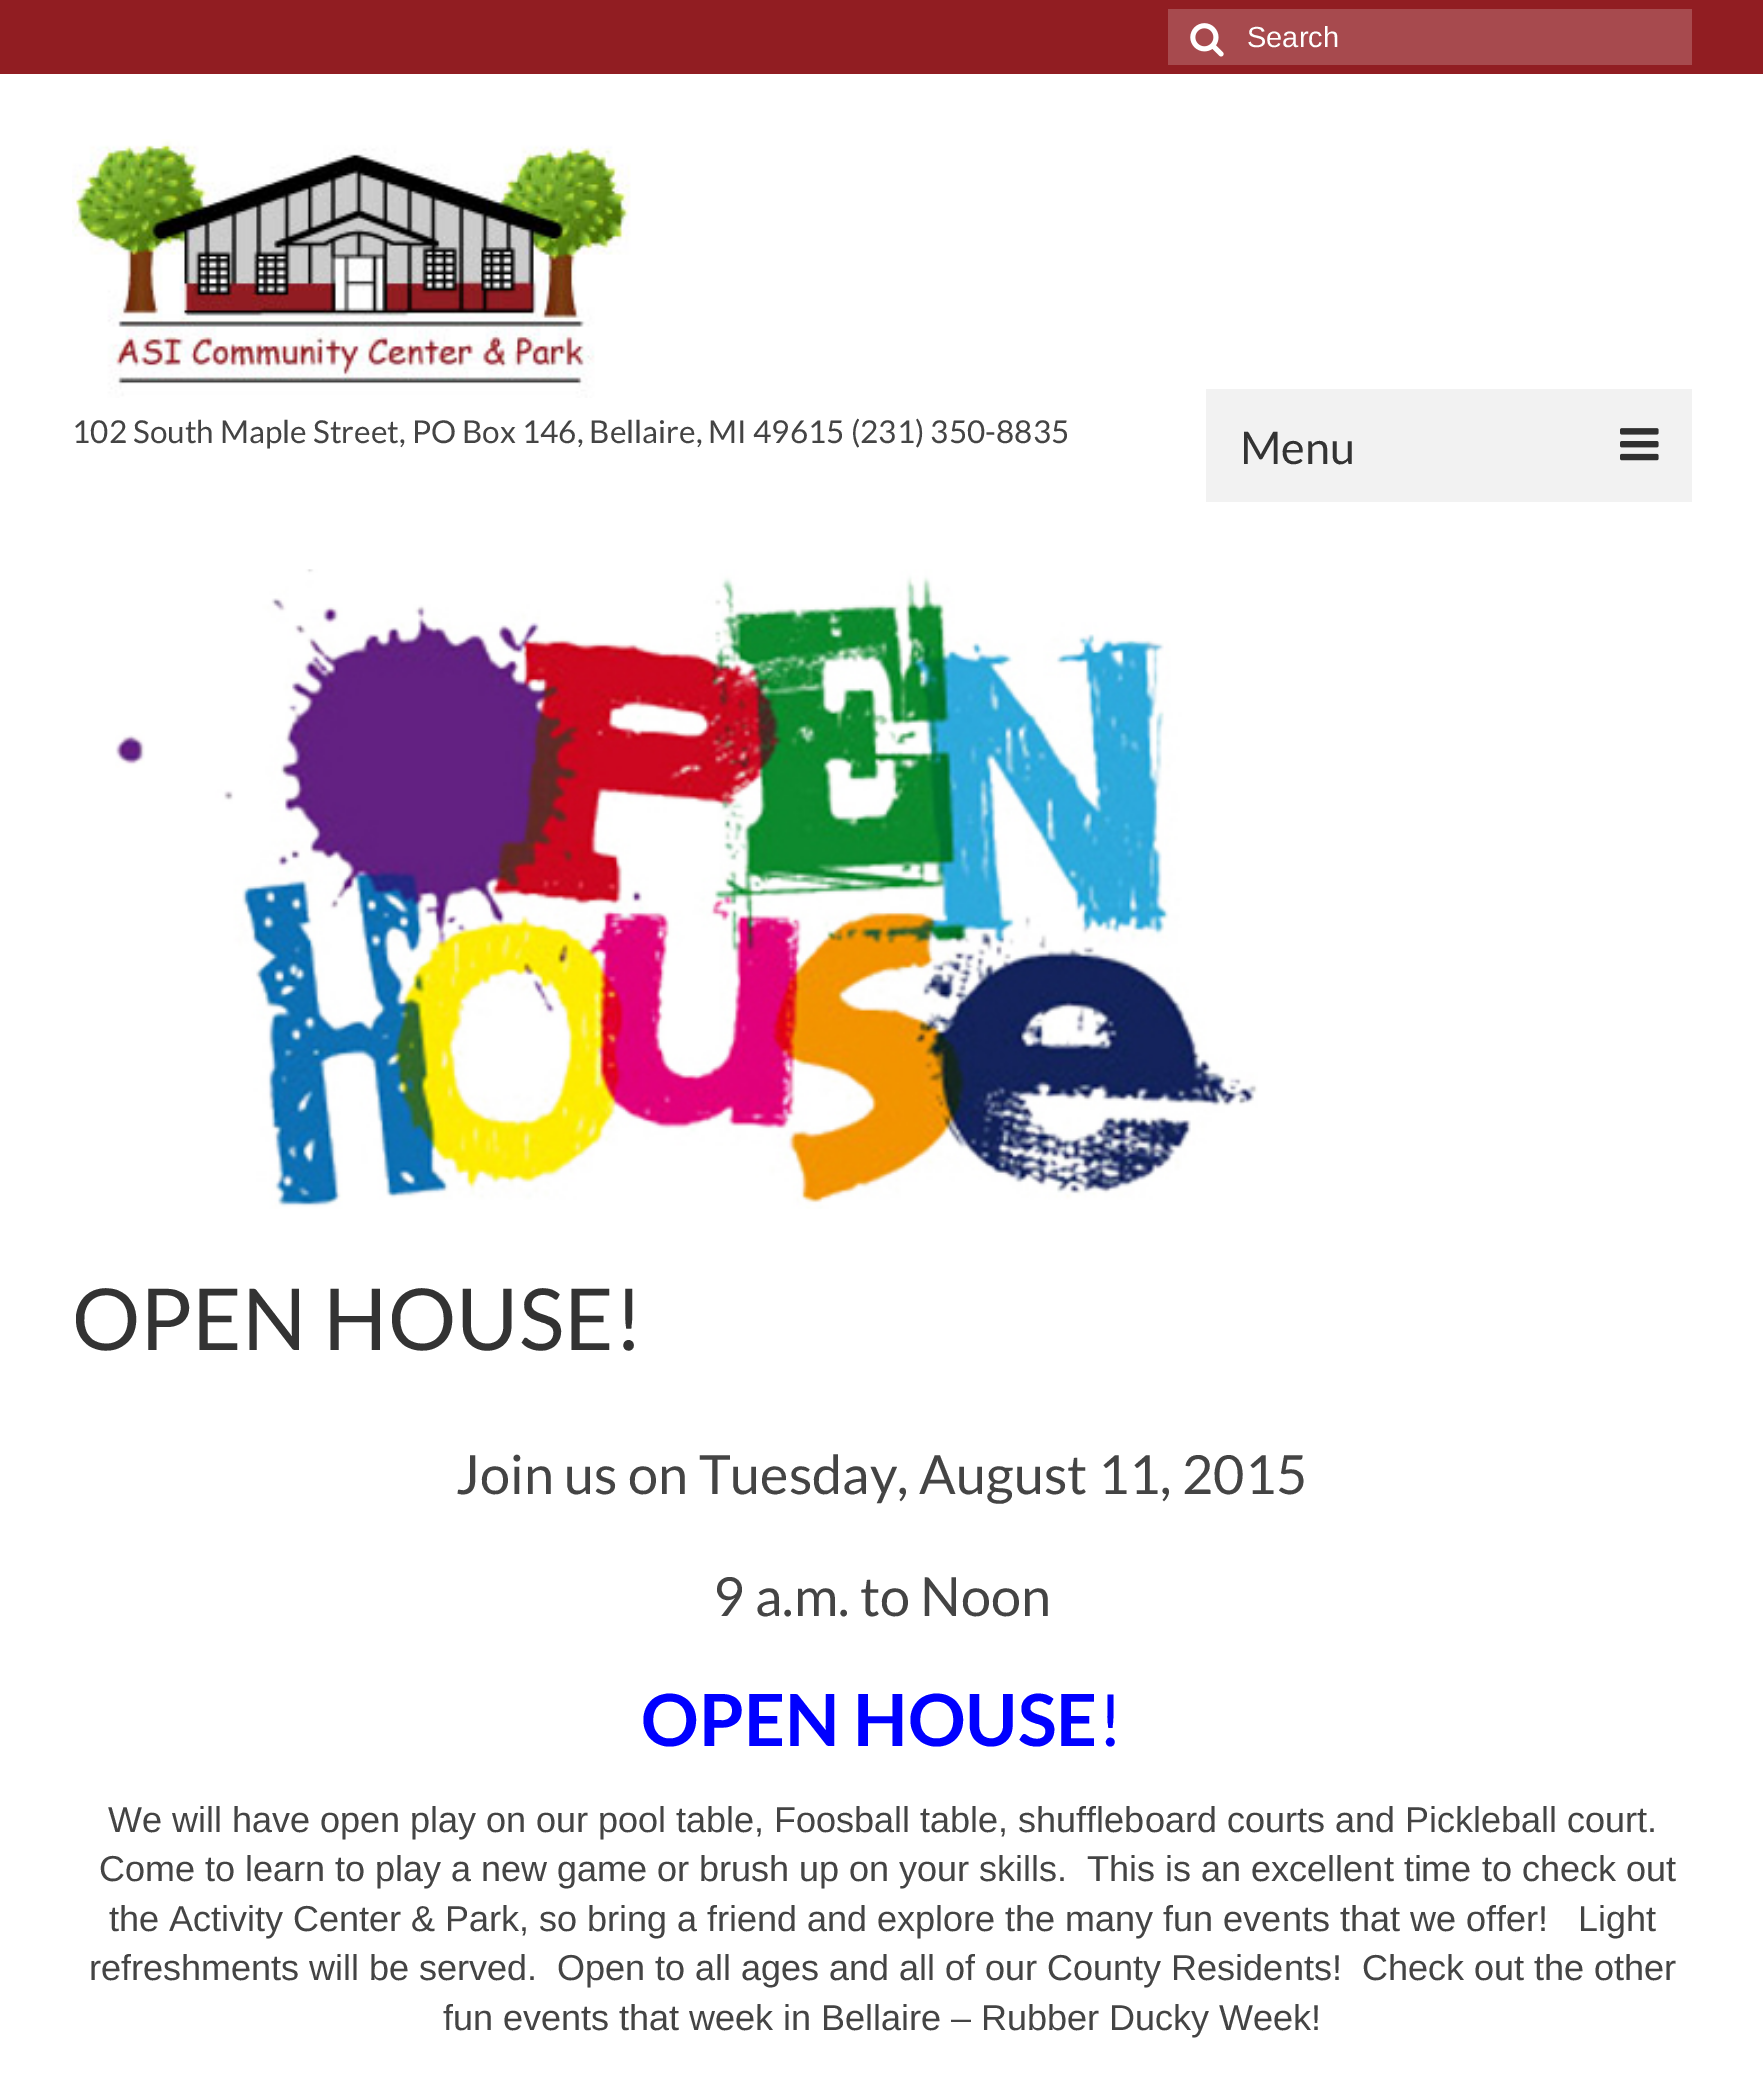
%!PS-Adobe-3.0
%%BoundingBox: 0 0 1763 2085
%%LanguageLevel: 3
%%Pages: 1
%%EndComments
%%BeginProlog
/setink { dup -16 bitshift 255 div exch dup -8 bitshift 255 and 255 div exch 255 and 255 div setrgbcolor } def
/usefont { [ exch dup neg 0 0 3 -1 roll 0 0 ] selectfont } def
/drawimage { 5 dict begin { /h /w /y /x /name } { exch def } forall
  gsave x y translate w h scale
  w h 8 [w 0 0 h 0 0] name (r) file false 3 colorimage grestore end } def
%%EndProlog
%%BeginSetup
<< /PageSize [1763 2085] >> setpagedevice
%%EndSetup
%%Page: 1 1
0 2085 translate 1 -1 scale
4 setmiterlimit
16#FFFFFF setink
0 0 1763 2085 rectfill
16#911D22 setink
0 0 1763 74 rectfill
16#A74A4E setink
1168 9 524 56 rectfill
(img1.raw) 1190 23 34 34 drawimage
/LiberationSans-Regular 29 usefont
16#FFFFFF setink
1247 47 moveto (Search) show
(img2.raw) 72 139 559 259 drawimage
/Lato-Regular 31.5 usefont
16#444444 setink
72 443 moveto (102 South Maple Street, PO Box 146, Bellaire, MI 49615 \(231\) 350-8835) show
16#F2F2F2 setink
1206 389 486 113 rectfill
/Lato-Regular 45 usefont
16#333333 setink
1240 464 moveto (Menu) show
(img3.raw) 1620 428 39 33 drawimage
(img4.raw) 115 569 1143 640 drawimage
/Lato-Regular 85.5 usefont
72 1350 moveto (OPEN HOUSE!) show
/Lato-Regular 54 usefont
16#444444 setink
456 1494 moveto (Join us on Tuesday, August 11, 2015) show
713 1616 moveto (9 a.m. to Noon) show
/Lato-Bold 72 usefont
16#0000FF setink
641 1746 moveto (OPEN HOUSE) show
/Lato-Regular 72 usefont
1098 1746 moveto (!) show
/LiberationSans-Regular 36 usefont
16#444444 setink
[
    [(We will have open play on our pool table, Foosball table, shuffleboard courts and Pickleball court.) 108 1832]
    [(Come to learn to play a new game or brush up on your skills.  This is an excellent time to check out) 99 1881]
    [(the Activity Center & Park, so bring a friend and explore the many fun events that we offer!   Light) 109 1931]
    [(refreshments will be served.  Open to all ages and all of our County Residents!  Check out the other) 89 1980]
    [(fun events that week in Bellaire – Rubber Ducky Week!) 443 2030]
] { aload pop moveto show } forall
showpage
%%EOF
